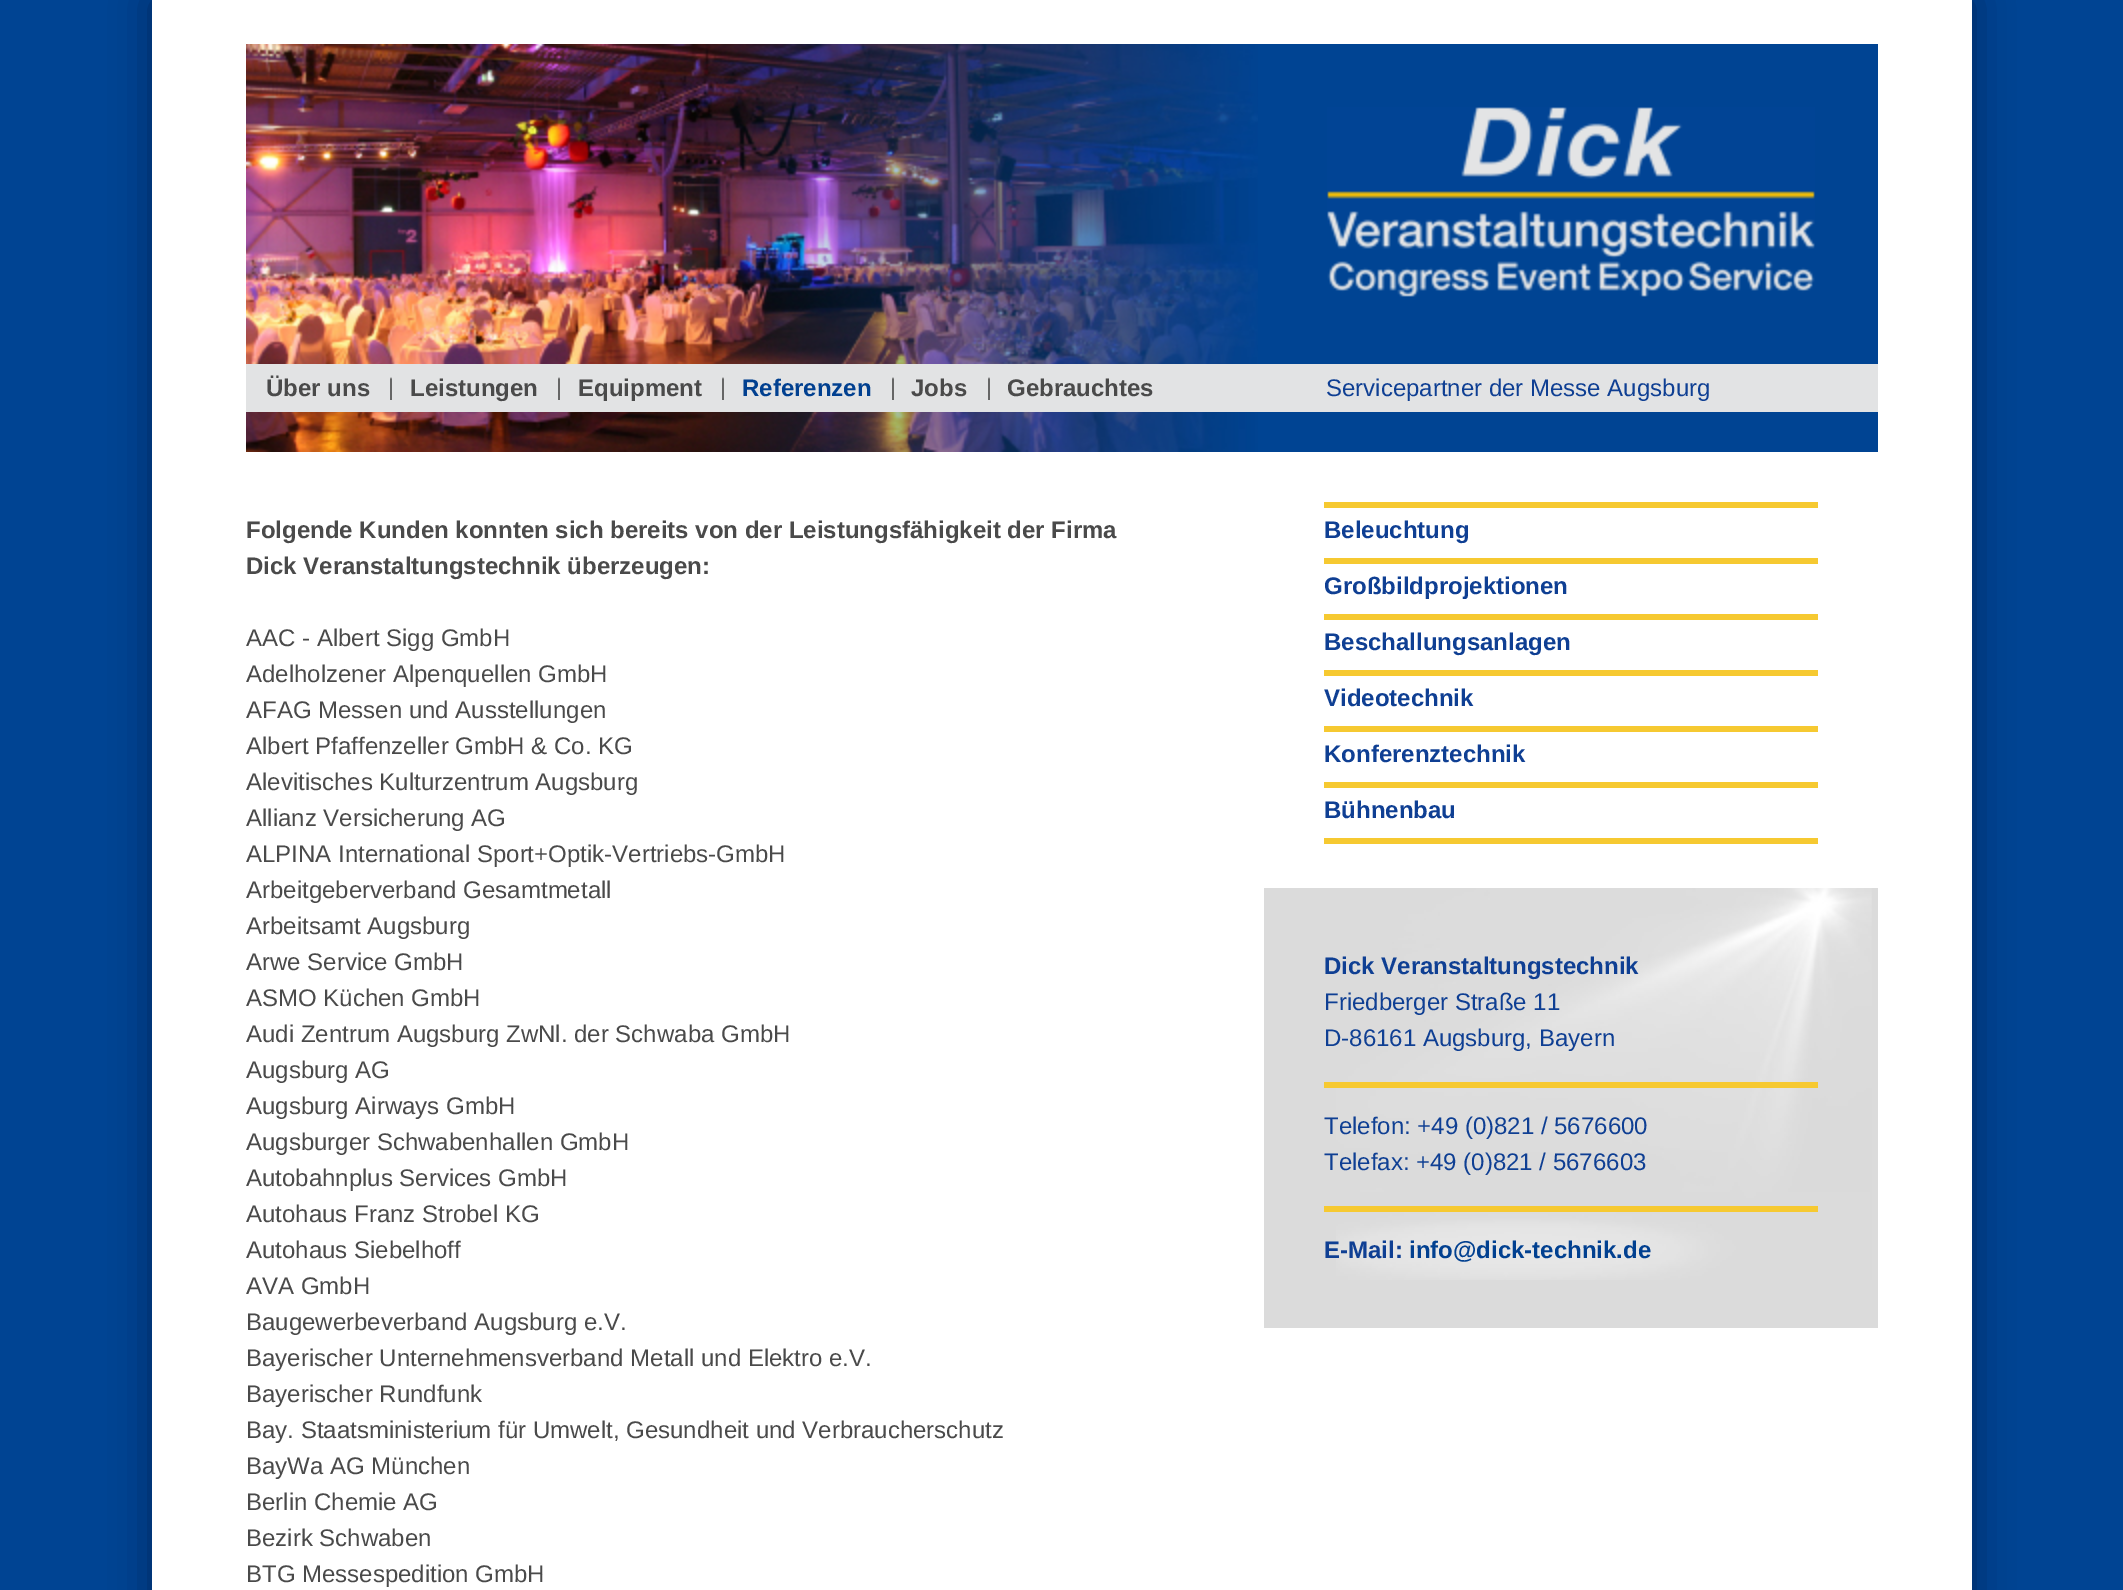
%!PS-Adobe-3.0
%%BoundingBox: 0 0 2123 1590
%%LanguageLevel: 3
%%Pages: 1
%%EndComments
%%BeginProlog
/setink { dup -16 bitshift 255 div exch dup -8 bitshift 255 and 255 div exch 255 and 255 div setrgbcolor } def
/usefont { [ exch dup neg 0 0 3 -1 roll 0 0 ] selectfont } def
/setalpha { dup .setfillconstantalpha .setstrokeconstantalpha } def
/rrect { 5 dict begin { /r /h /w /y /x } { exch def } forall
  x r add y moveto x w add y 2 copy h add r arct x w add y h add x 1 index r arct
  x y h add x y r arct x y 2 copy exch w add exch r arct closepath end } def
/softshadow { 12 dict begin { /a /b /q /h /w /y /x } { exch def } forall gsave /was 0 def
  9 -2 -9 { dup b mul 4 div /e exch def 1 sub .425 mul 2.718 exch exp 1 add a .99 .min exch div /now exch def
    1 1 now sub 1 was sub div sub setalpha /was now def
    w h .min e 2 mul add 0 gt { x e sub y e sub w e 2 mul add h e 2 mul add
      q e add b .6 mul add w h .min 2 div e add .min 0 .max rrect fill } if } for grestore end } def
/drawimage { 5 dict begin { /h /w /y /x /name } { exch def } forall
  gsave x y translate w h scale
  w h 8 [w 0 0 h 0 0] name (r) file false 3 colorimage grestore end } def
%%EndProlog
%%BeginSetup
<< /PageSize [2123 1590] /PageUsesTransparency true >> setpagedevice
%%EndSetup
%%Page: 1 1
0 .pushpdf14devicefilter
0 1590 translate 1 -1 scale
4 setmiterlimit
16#004493 setink
0 0 2123 1590 rectfill
16#00255C setink
152 0 1820 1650 0 20 1 softshadow
16#FFFFFF setink
152 0 1820 1590 rectfill
16#004493 setink
1258 44 620 408 rectfill
(img1.raw) 246 44 1012 408 drawimage
(img2.raw) 1327 107 488 190 drawimage
16#E2E3E4 setink
246 364 1632 48 rectfill
/LiberationSans-Bold 24 usefont
16#4A4A4A setink
266 396 moveto (Über uns) show
(img3.raw) 390 377 2 23 drawimage
410 396 moveto (Leistungen) show
(img3.raw) 558 377 2 23 drawimage
578 396 moveto (Equipment) show
(img3.raw) 722 377 2 23 drawimage
16#014090 setink
742 396 moveto (Referenzen) show
(img3.raw) 892 377 2 23 drawimage
16#4A4A4A setink
911 396 moveto (Jobs) show
(img3.raw) 988 377 2 23 drawimage
1007 396 moveto (Gebrauchtes) show
/LiberationSans-Regular 24 usefont
16#0F3F93 setink
1326 396 moveto (Servicepartner der Messe Augsburg) show
/LiberationSans-Bold 24 usefont
16#4A4A4A setink
246 538 moveto (Folgende Kunden konnten sich bereits von der Leistungsfähigkeit der Firma) show
246 574 moveto (Dick Veranstaltungstechnik überzeugen:) show
/LiberationSans-Regular 24 usefont
[
    [(AAC - Albert Sigg GmbH) 246 646]
    [(Adelholzener Alpenquellen GmbH) 246 682]
    [(AFAG Messen und Ausstellungen) 246 718]
    [(Albert Pfaffenzeller GmbH & Co. KG) 246 754]
    [(Alevitisches Kulturzentrum Augsburg) 246 790]
    [(Allianz Versicherung AG) 246 826]
    [(ALPINA International Sport+Optik-Vertriebs-GmbH) 246 862]
    [(Arbeitgeberverband Gesamtmetall) 246 898]
    [(Arbeitsamt Augsburg) 246 934]
    [(Arwe Service GmbH) 246 970]
    [(ASMO Küchen GmbH) 246 1006]
    [(Audi Zentrum Augsburg ZwNl. der Schwaba GmbH) 246 1042]
    [(Augsburg AG) 246 1078]
    [(Augsburg Airways GmbH) 246 1114]
    [(Augsburger Schwabenhallen GmbH) 246 1150]
    [(Autobahnplus Services GmbH) 246 1186]
    [(Autohaus Franz Strobel KG) 246 1222]
    [(Autohaus Siebelhoff) 246 1258]
    [(AVA GmbH) 246 1294]
    [(Baugewerbeverband Augsburg e.V.) 246 1330]
    [(Bayerischer Unternehmensverband Metall und Elektro e.V.) 246 1366]
    [(Bayerischer Rundfunk) 246 1402]
    [(Bay. Staatsministerium für Umwelt, Gesundheit und Verbraucherschutz) 246 1438]
    [(BayWa AG München) 246 1474]
    [(Berlin Chemie AG) 246 1510]
    [(Bezirk Schwaben) 246 1546]
    [(BTG Messespedition GmbH) 246 1582]
] { aload pop moveto show } forall
16#F6C931 setink
1324 502 494 6 rectfill
/LiberationSans-Bold 24 usefont
16#0F3F93 setink
1324 538 moveto (Beleuchtung) show
16#F6C931 setink
1324 558 494 6 rectfill
16#0F3F93 setink
1324 594 moveto (Großbildprojektionen) show
16#F6C931 setink
1324 614 494 6 rectfill
16#0F3F93 setink
1324 650 moveto (Beschallungsanlagen) show
16#F6C931 setink
1324 670 494 6 rectfill
16#0F3F93 setink
1324 706 moveto (Videotechnik) show
16#F6C931 setink
1324 726 494 6 rectfill
16#0F3F93 setink
1324 762 moveto (Konferenztechnik) show
16#F6C931 setink
1324 782 494 6 rectfill
16#0F3F93 setink
1324 818 moveto (Bühnenbau) show
16#F6C931 setink
1324 838 494 6 rectfill
16#DBDBDB setink
1264 888 614 440 rectfill
(img4.raw) 1336 888 536 392 drawimage
16#0F3F93 setink
1324 974 moveto (Dick Veranstaltungstechnik) show
/LiberationSans-Regular 24 usefont
1324 1010 moveto (Friedberger Straße 11) show
1324 1046 moveto (D-86161 Augsburg, Bayern) show
16#F6C931 setink
1324 1082 494 6 rectfill
16#0F3F93 setink
1324 1134 moveto (Telefon: +49 \(0\)821 / 5676600) show
1324 1170 moveto (Telefax: +49 \(0\)821 / 5676603) show
16#F6C931 setink
1324 1206 494 6 rectfill
/LiberationSans-Bold 24 usefont
16#0F3F93 setink
1324 1258 moveto (E-Mail:) show
16#014090 setink
1409 1258 moveto (info@dick-technik.de) show
.poppdf14devicefilter showpage
%%EOF
